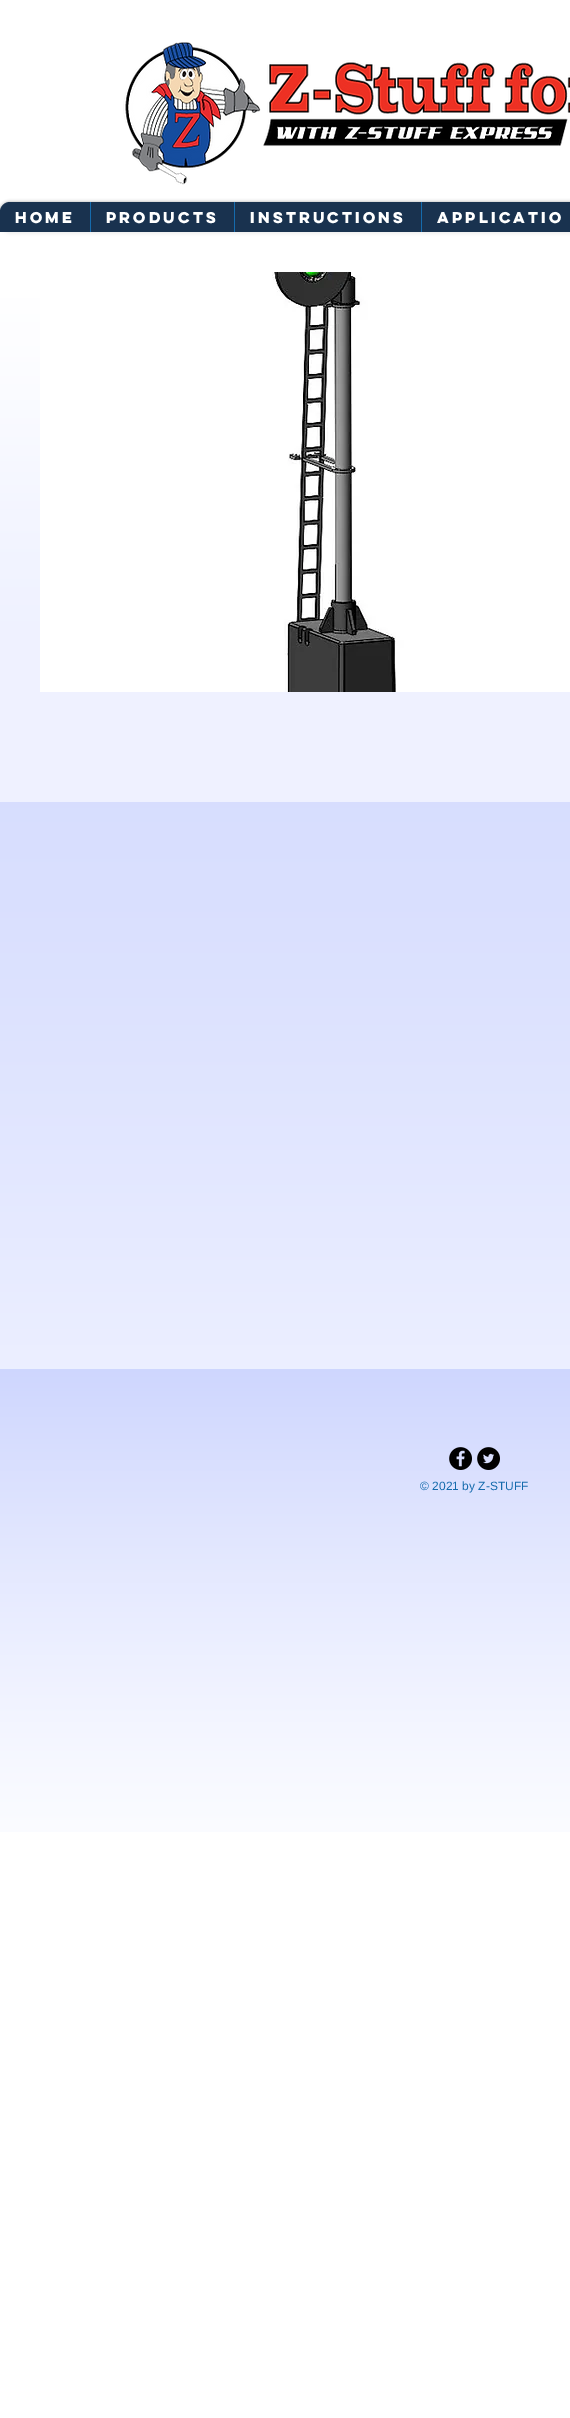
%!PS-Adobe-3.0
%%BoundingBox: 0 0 570 2418
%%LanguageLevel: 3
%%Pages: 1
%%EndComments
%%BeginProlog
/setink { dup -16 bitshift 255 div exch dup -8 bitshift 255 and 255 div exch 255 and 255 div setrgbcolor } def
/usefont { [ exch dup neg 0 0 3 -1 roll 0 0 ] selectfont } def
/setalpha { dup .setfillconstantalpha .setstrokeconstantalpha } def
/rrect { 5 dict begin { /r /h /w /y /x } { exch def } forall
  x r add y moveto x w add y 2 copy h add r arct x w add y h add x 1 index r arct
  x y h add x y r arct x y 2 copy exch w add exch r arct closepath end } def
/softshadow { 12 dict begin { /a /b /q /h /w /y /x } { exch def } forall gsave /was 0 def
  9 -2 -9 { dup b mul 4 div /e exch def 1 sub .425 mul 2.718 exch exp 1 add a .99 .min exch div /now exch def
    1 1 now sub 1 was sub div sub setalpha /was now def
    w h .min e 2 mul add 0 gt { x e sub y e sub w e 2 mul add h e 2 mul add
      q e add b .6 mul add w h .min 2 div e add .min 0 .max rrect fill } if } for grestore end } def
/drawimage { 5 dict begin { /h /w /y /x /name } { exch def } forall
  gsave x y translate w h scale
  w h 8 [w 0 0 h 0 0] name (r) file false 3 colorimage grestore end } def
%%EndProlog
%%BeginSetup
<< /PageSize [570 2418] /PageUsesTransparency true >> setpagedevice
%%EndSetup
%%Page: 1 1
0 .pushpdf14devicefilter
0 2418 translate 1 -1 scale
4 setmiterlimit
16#FFFFFF setink
0 0 570 2418 rectfill
(img1.raw) 123 42 447 143 drawimage
16#000000 setink
0 203 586 30 10 2 0.6 softshadow
16#19324F setink
10 202 moveto 570 202 lineto 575.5 202 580 206.5 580 212 curveto 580 232 lineto 0 232 lineto 0 212 lineto 0 206.5 4.5 202 10 202 curveto closepath fill
/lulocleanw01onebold-Bold 14 usefont
16#FFFFFF setink
15 223 moveto (Home) show
16#156BAD setink
90 202 1 30 rectfill
16#FFFFFF setink
106 223 moveto (Products) show
16#156BAD setink
234 202 1 30 rectfill
16#FFFFFF setink
250 223 moveto (Instructions) show
16#156BAD setink
421 202 1 30 rectfill
16#FFFFFF setink
437 223 moveto (Applicatio) show
(img5.raw) 0 298 570 1534 drawimage
0.6 setalpha
0 232 570 1137 rectfill
0 232 570 570 rectfill
1 setalpha
(img2.raw) 40 272 530 420 drawimage
(img3.raw) 449 1447 23 23 drawimage
(img4.raw) 477 1447 23 23 drawimage
/LiberationSans-Regular 12 usefont
16#156BAD setink
420 1490 moveto (© 2021 by Z-STUFF) show
.poppdf14devicefilter showpage
%%EOF
